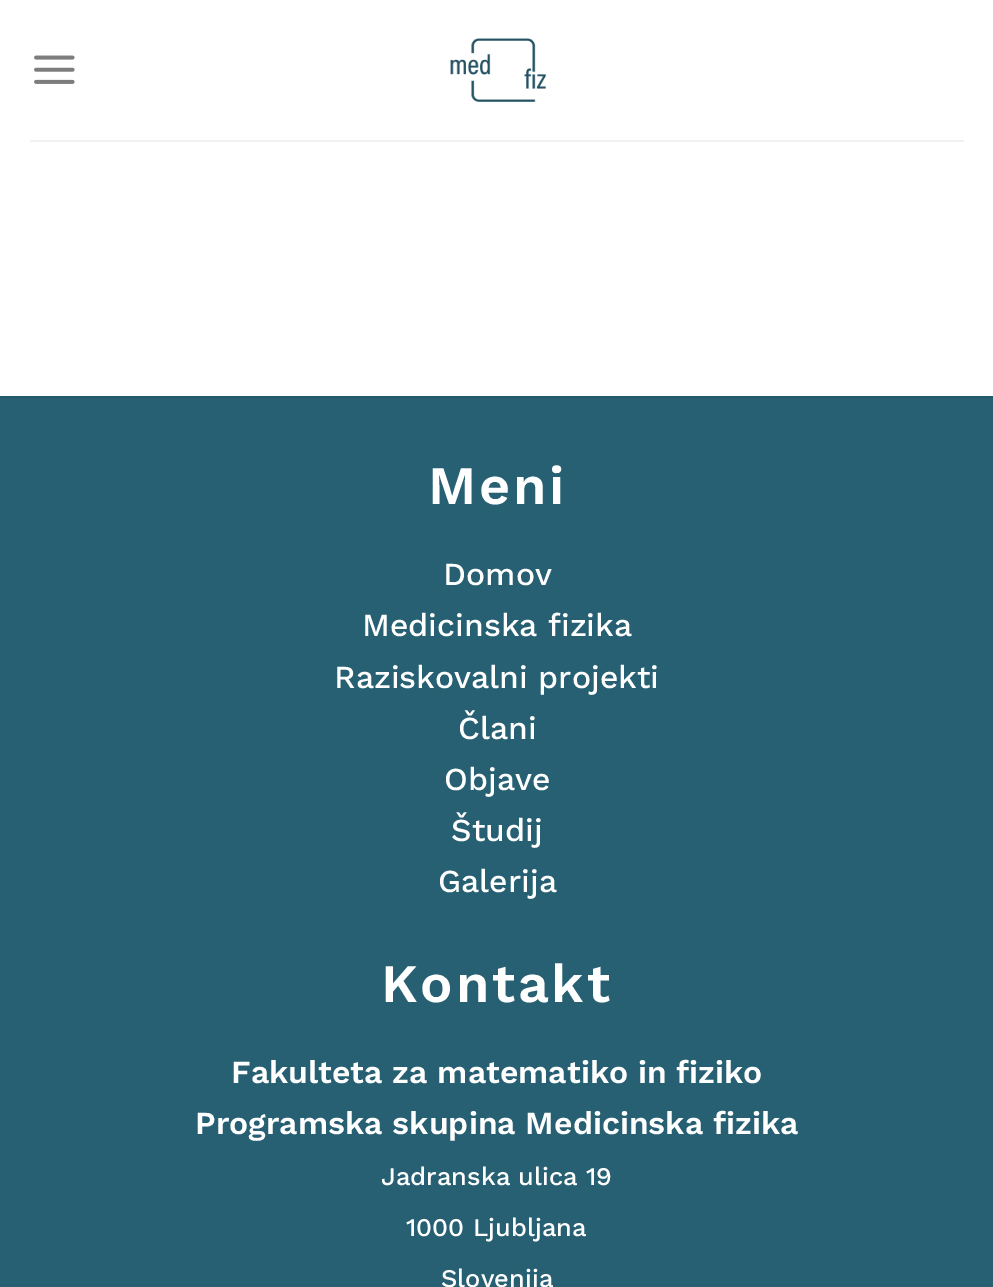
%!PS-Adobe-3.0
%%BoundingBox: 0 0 993 1287
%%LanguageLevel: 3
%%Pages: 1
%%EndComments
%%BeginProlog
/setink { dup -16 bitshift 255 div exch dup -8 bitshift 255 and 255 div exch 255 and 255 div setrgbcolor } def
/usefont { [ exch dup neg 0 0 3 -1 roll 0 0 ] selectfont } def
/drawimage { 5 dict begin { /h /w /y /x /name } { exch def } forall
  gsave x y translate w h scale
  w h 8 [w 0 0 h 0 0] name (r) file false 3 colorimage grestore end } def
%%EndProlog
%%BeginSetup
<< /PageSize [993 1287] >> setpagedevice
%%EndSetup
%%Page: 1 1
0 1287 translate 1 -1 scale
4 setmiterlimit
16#FFFFFF setink
0 0 993 1287 rectfill
(img1.raw) 34 55 41 29 drawimage
(img2.raw) 450 38 97 64 drawimage
[
    [30 140 934 2 16#F1F1F1]
    [0 398 993 889 16#266072]
    [0 396 993 2 16#245B6C]
] { aload pop setink rectfill } forall
/WorkSans-SemiBold 54 usefont
16#FFFFFF setink
428 504 moveto 2.75 0 (Meni) ashow
/WorkSans-Medium 32 usefont
[
    [(Domov) 443 585]
    [(Medicinska fizika) 362 636]
    [(Raziskovalni projekti) 334 688]
    [(Člani) 458 739]
    [(Objave) 444 790]
    [(Študij) 451 841]
    [(Galerija) 438 892]
] { aload pop moveto show } forall
/WorkSans-SemiBold 54 usefont
381 1002 moveto 2.75 0 (Kontakt) ashow
/WorkSans-SemiBold 32 usefont
231 1083 moveto (Fakulteta za matematiko in fiziko) show
195 1134 moveto (Programska skupina Medicinska fizika) show
/WorkSans-Medium 25.5 usefont
[
    [(Jadranska ulica 19) 381 1185]
    [(1000 Ljubljana) 406 1236]
    [(Slovenija) 441 1287]
] { aload pop moveto show } forall
showpage
%%EOF
